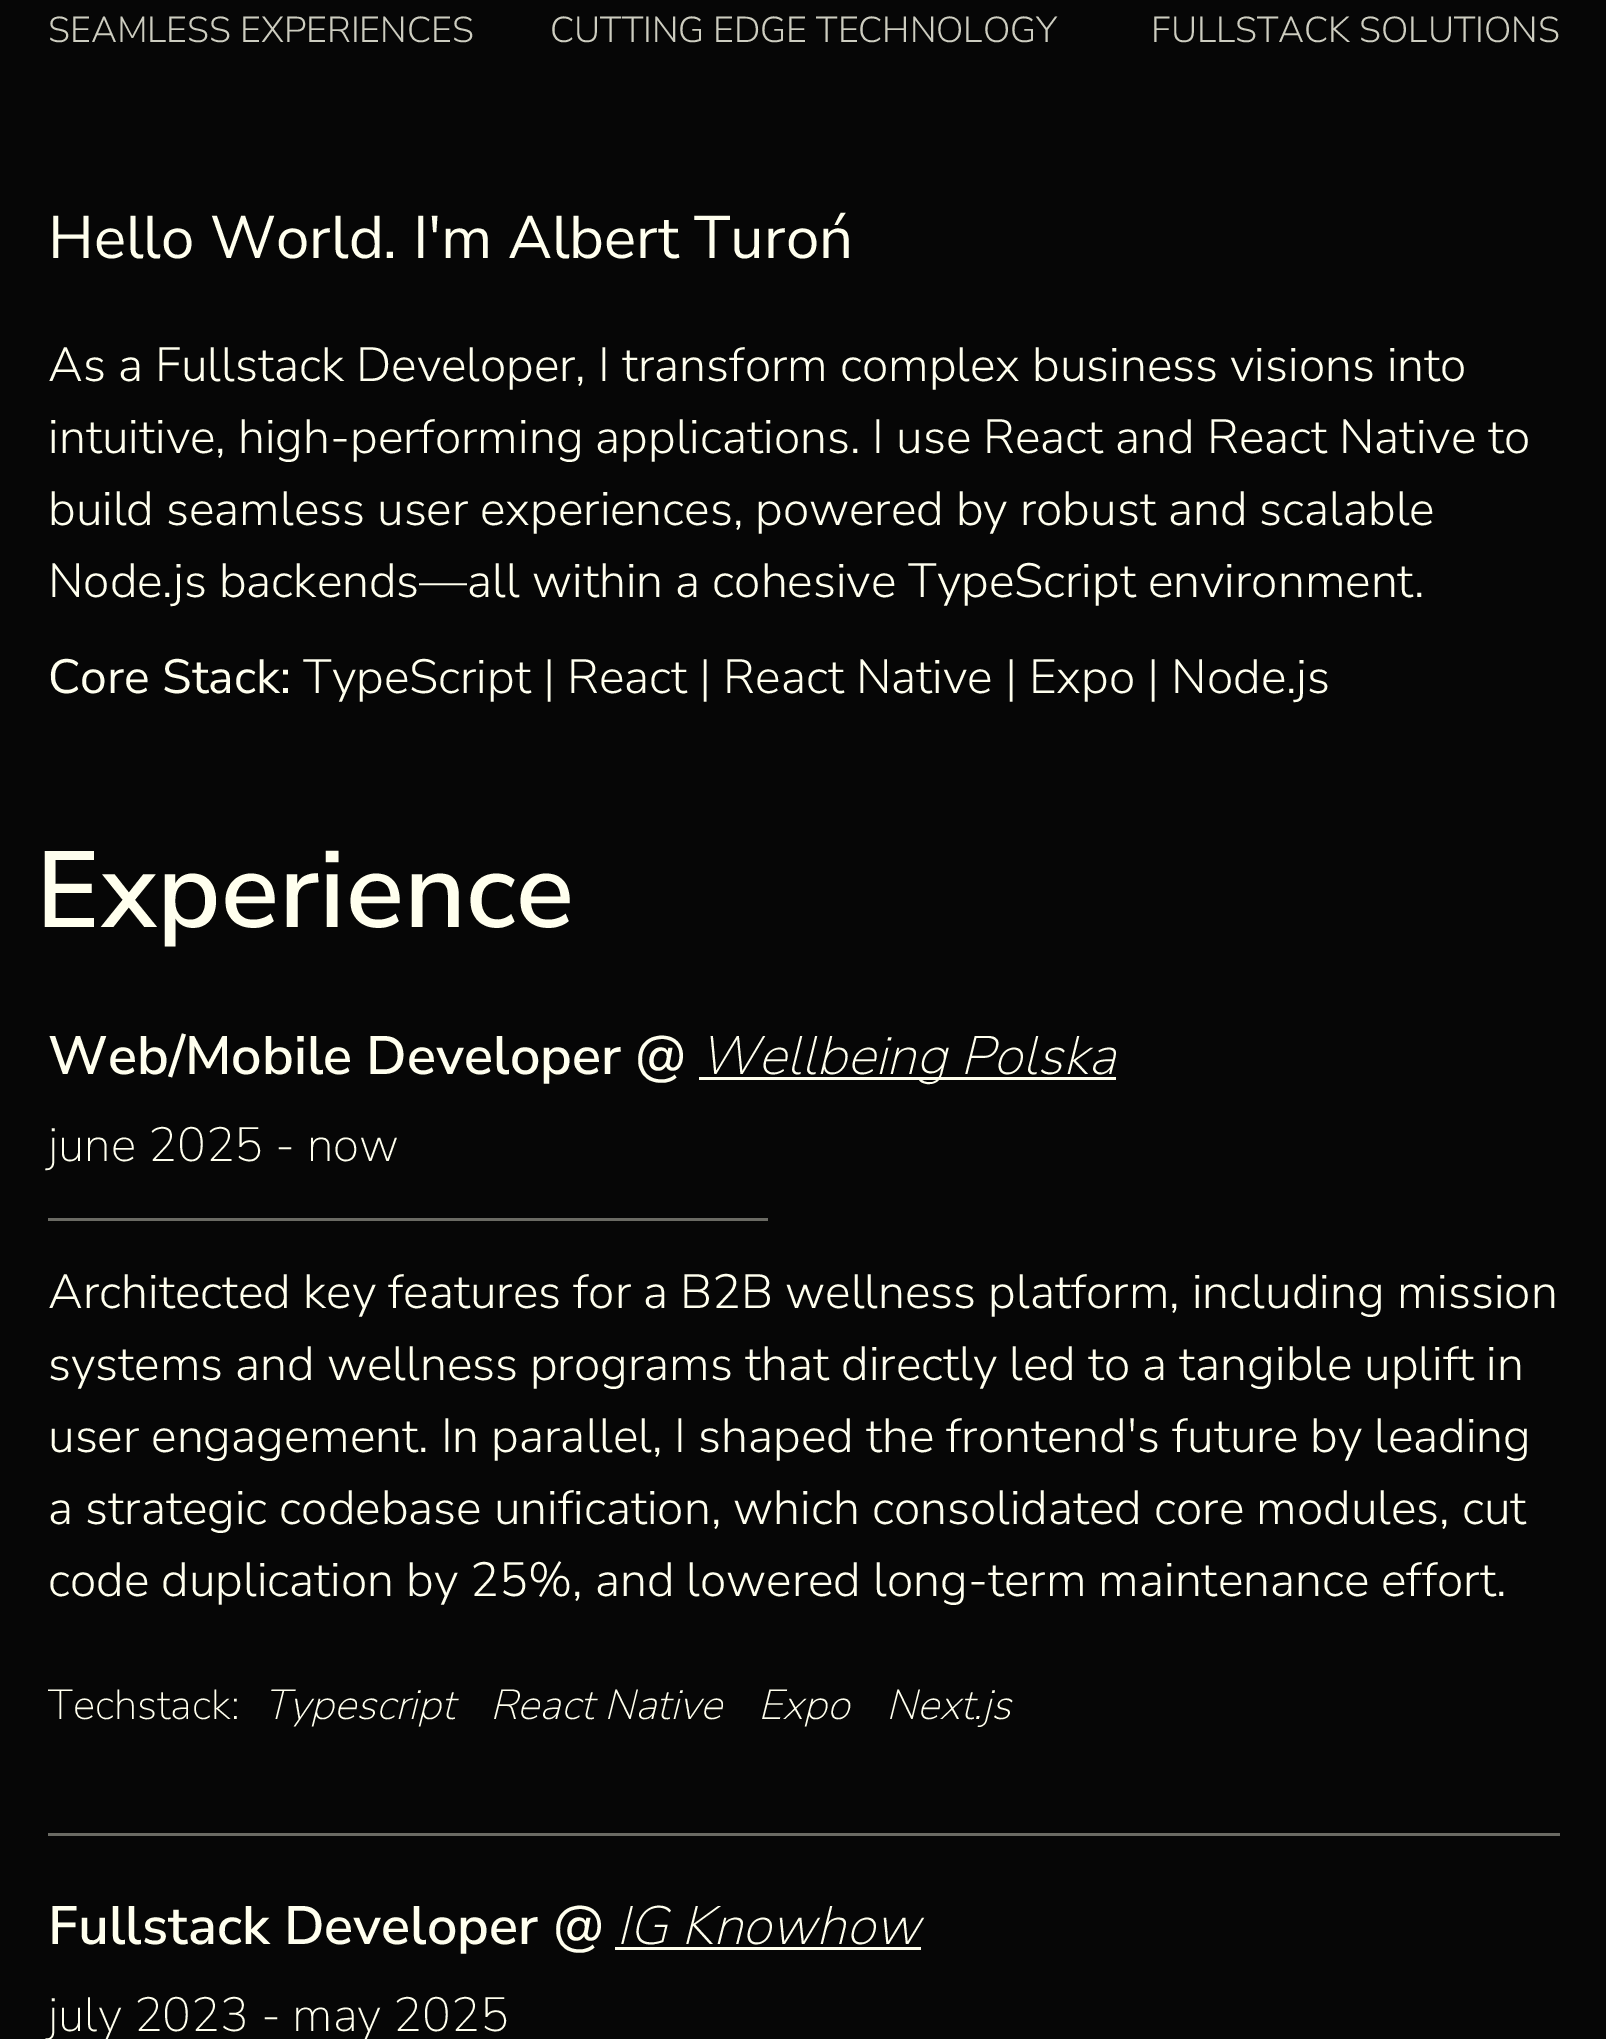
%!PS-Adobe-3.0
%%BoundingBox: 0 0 1606 2039
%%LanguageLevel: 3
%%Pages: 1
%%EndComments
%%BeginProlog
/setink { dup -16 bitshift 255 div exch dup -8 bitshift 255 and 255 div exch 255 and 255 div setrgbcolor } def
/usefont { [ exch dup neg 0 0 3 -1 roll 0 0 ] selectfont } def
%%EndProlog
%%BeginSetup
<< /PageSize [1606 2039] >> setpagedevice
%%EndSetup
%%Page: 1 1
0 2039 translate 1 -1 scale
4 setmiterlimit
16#060606 setink
0 0 1606 2039 rectfill
/NunitoSans-Light 36 usefont
16#CDCDC0 setink
[
    [(SEAMLESS EXPERIENCES) 48 42]
    [(CUTTING EDGE TECHNOLOGY) 550 42]
    [(FULLSTACK SOLUTIONS) 1151 42]
] { aload pop moveto show } forall
/NunitoSans-Regular 60 usefont
16#FFFFEE setink
48 258 moveto (Hello World. I'm Albert Turoń) show
/NunitoSans-Light 48 usefont
[
    [(As a Fullstack Developer, I transform complex business visions into) 48 381]
    [(intuitive, high-performing applications. I use React and React Native to) 48 453]
    [(build seamless user experiences, powered by robust and scalable) 48 525]
    [(Node.js backends—all within a cohesive TypeScript environment.) 48 597]
] { aload pop moveto show } forall
/NunitoSans-Regular 48 usefont
48 693 moveto (Core Stack:) show
/NunitoSans-Light 48 usefont
303 693 moveto (TypeScript | React | React Native | Expo | Node.js) show
/NunitoSans-SemiBold 108 usefont
36 927 moveto (Experience) show
/NunitoSans-SemiBold 54 usefont
48 1074 moveto (Web/Mobile Developer @) show
699 1077 417 3 rectfill
/NunitoSans-ExtraLightItalic 54 usefont
699 1074 moveto (Wellbeing Polska) show
/NunitoSans-ExtraLight 48 usefont
48 1161 moveto (june 2025 - now) show
16#6A6A63 setink
48 1218 720 3 rectfill
/NunitoSans-Light 48 usefont
16#FFFFEE setink
[
    [(Architected key features for a B2B wellness platform, including mission) 48 1308]
    [(systems and wellness programs that directly led to a tangible uplift in) 48 1380]
    [(user engagement. In parallel, I shaped the frontend's future by leading) 48 1452]
    [(a strategic codebase unification, which consolidated core modules, cut) 48 1524]
    [(code duplication by 25%, and lowered long-term maintenance effort.) 48 1596]
] { aload pop moveto show } forall
/NunitoSans-ExtraLight 42 usefont
48 1719 moveto (Techstack:) show
/NunitoSans-ExtraLightItalic 42 usefont
[
    [(Typescript) 264 1719]
    [(React Native) 490 1719]
    [(Expo) 758 1719]
    [(Next.js) 886 1719]
] { aload pop moveto show } forall
16#6A6A63 setink
48 1833 1512 3 rectfill
/NunitoSans-SemiBold 54 usefont
16#FFFFEE setink
48 1944 moveto (Fullstack Developer @) show
/NunitoSans-ExtraLightItalic 54 usefont
616 1944 moveto (IG Knowhow) show
615 1947 306 3 rectfill
/NunitoSans-ExtraLight 48 usefont
48 2031 moveto (july 2023 - may 2025) show
showpage
%%EOF
